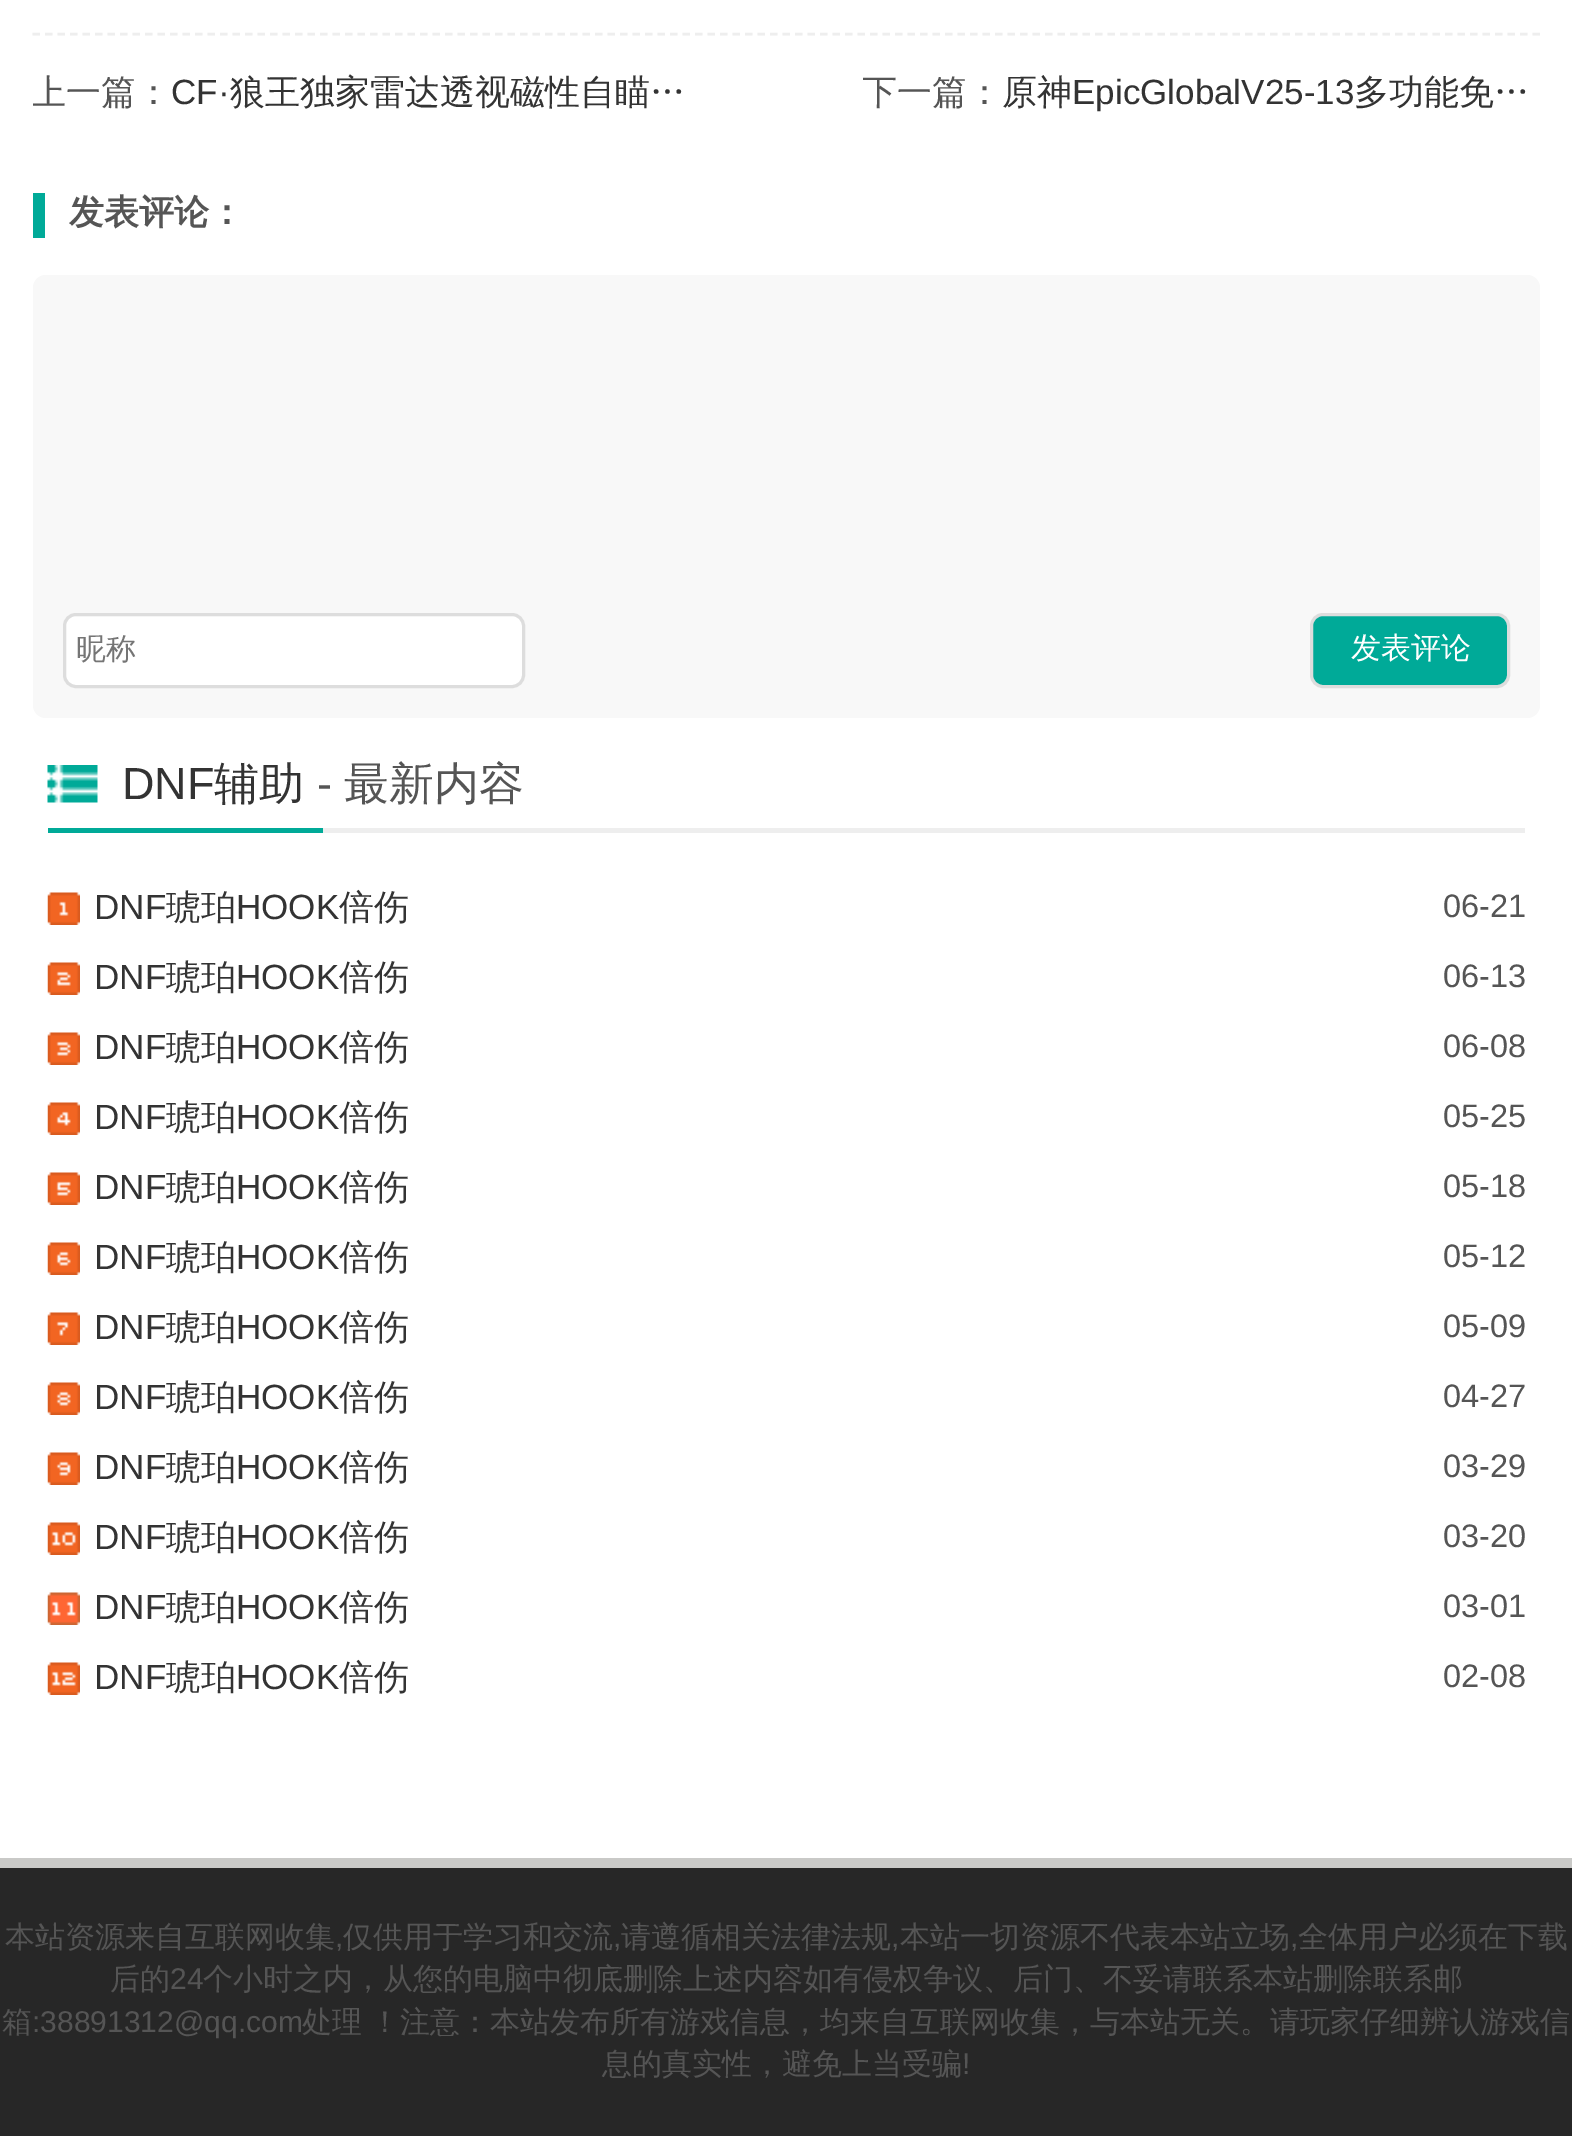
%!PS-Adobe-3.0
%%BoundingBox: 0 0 1572 2136
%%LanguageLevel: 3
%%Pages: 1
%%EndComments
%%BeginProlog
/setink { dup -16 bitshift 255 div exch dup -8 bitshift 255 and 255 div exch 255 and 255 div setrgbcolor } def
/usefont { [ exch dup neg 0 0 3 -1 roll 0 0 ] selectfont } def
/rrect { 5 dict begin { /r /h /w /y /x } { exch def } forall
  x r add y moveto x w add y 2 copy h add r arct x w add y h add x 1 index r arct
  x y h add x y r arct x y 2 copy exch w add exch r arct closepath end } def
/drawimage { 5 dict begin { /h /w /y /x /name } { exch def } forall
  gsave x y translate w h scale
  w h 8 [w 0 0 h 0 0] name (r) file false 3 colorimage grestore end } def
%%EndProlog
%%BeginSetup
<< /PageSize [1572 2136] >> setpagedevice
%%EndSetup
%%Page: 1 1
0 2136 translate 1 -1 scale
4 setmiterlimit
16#FFFFFF setink
0 0 1572 2136 rectfill
16#EEEEEE setink
2.5 setlinewidth
[7.5 5] 0 setdash
32.5 34 moveto 1540 34 lineto stroke
gsave
33 73 677 45 rectclip
/WenQuanYiZenHei-Medium 35 usefont
16#555555 setink
31 104 moveto (上一篇：) show
grestore
/LiberationSans-Regular 35 usefont
16#333333 setink
171 104 moveto (CF·) show
/WenQuanYiZenHei-Medium 35 usefont
230 104 moveto (狼王独家雷达透视磁性自瞄…) show
gsave
863 73 677 45 rectclip
16#555555 setink
862 104 moveto (下一篇：) show
grestore
1002 104 moveto (原神) show
/LiberationSans-Regular 35 usefont
1072 104 moveto (EpicGlobalV25-13) show
/WenQuanYiZenHei-Medium 35 usefont
1354 104 moveto (多功能免…) show
16#00AA98 setink
33 193 12 45 rectfill
/WenQuanYiZenHei-Bold 35 usefont
16#555555 setink
69 224 moveto (发表评论：) show
16#F8F8F8 setink
33 275 1507 443 13 rrect fill
16#FFFFFF setink
64.5 614.5 459 72 11.5 rrect gsave fill grestore
16#DDDDDD setink
3 setlinewidth
[] 0 setdash
stroke
/WenQuanYiZenHei-Medium 30 usefont
16#757575 setink
76 659 moveto (昵称) show
16#00AA98 setink
1311.5 614.5 197 72 11.5 rrect gsave fill grestore
16#DDDDDD setink
stroke
16#FFFFFF setink
1351 658 moveto (发表评论) show
(img1.raw) 47 765 51 38 drawimage
16#EEEEEE setink
323 828 1202 5 rectfill
/LiberationSans-Regular 45 usefont
16#333333 setink
122 799 moveto (DNF) show
/WenQuanYiZenHei-Medium 45 usefont
214 799 moveto (辅助) show
/LiberationSans-Regular 45 usefont
16#555555 setink
317 799 moveto (-) show
/WenQuanYiZenHei-Medium 45 usefont
344 799 moveto (最新内容) show
16#00AA98 setink
48 828 275 5 rectfill
(img2.raw) 47 892 33 33 drawimage
/LiberationSans-Regular 35 usefont
16#333333 setink
94 919 moveto (DNF) show
/WenQuanYiZenHei-Medium 35 usefont
166 919 moveto (琥珀) show
/LiberationSans-Regular 35 usefont
236 919 moveto (HOOK) show
/WenQuanYiZenHei-Medium 35 usefont
339 919 moveto (倍伤) show
/LiberationSans-Regular 32.5 usefont
16#555555 setink
1443 917 moveto (06-21) show
(img3.raw) 47 962 33 33 drawimage
/LiberationSans-Regular 35 usefont
16#333333 setink
94 989 moveto (DNF) show
/WenQuanYiZenHei-Medium 35 usefont
166 989 moveto (琥珀) show
/LiberationSans-Regular 35 usefont
236 989 moveto (HOOK) show
/WenQuanYiZenHei-Medium 35 usefont
339 989 moveto (倍伤) show
/LiberationSans-Regular 32.5 usefont
16#555555 setink
1443 987 moveto (06-13) show
(img4.raw) 47 1032 33 33 drawimage
/LiberationSans-Regular 35 usefont
16#333333 setink
94 1059 moveto (DNF) show
/WenQuanYiZenHei-Medium 35 usefont
166 1059 moveto (琥珀) show
/LiberationSans-Regular 35 usefont
236 1059 moveto (HOOK) show
/WenQuanYiZenHei-Medium 35 usefont
339 1059 moveto (倍伤) show
/LiberationSans-Regular 32.5 usefont
16#555555 setink
1443 1057 moveto (06-08) show
(img5.raw) 47 1102 33 33 drawimage
/LiberationSans-Regular 35 usefont
16#333333 setink
94 1129 moveto (DNF) show
/WenQuanYiZenHei-Medium 35 usefont
166 1129 moveto (琥珀) show
/LiberationSans-Regular 35 usefont
236 1129 moveto (HOOK) show
/WenQuanYiZenHei-Medium 35 usefont
339 1129 moveto (倍伤) show
/LiberationSans-Regular 32.5 usefont
16#555555 setink
1443 1127 moveto (05-25) show
(img6.raw) 47 1172 33 33 drawimage
/LiberationSans-Regular 35 usefont
16#333333 setink
94 1199 moveto (DNF) show
/WenQuanYiZenHei-Medium 35 usefont
166 1199 moveto (琥珀) show
/LiberationSans-Regular 35 usefont
236 1199 moveto (HOOK) show
/WenQuanYiZenHei-Medium 35 usefont
339 1199 moveto (倍伤) show
/LiberationSans-Regular 32.5 usefont
16#555555 setink
1443 1197 moveto (05-18) show
(img7.raw) 47 1242 33 33 drawimage
/LiberationSans-Regular 35 usefont
16#333333 setink
94 1269 moveto (DNF) show
/WenQuanYiZenHei-Medium 35 usefont
166 1269 moveto (琥珀) show
/LiberationSans-Regular 35 usefont
236 1269 moveto (HOOK) show
/WenQuanYiZenHei-Medium 35 usefont
339 1269 moveto (倍伤) show
/LiberationSans-Regular 32.5 usefont
16#555555 setink
1443 1267 moveto (05-12) show
(img8.raw) 47 1312 33 33 drawimage
/LiberationSans-Regular 35 usefont
16#333333 setink
94 1339 moveto (DNF) show
/WenQuanYiZenHei-Medium 35 usefont
166 1339 moveto (琥珀) show
/LiberationSans-Regular 35 usefont
236 1339 moveto (HOOK) show
/WenQuanYiZenHei-Medium 35 usefont
339 1339 moveto (倍伤) show
/LiberationSans-Regular 32.5 usefont
16#555555 setink
1443 1337 moveto (05-09) show
(img9.raw) 47 1382 33 33 drawimage
/LiberationSans-Regular 35 usefont
16#333333 setink
94 1409 moveto (DNF) show
/WenQuanYiZenHei-Medium 35 usefont
166 1409 moveto (琥珀) show
/LiberationSans-Regular 35 usefont
236 1409 moveto (HOOK) show
/WenQuanYiZenHei-Medium 35 usefont
339 1409 moveto (倍伤) show
/LiberationSans-Regular 32.5 usefont
16#555555 setink
1443 1407 moveto (04-27) show
(img10.raw) 47 1452 33 33 drawimage
/LiberationSans-Regular 35 usefont
16#333333 setink
94 1479 moveto (DNF) show
/WenQuanYiZenHei-Medium 35 usefont
166 1479 moveto (琥珀) show
/LiberationSans-Regular 35 usefont
236 1479 moveto (HOOK) show
/WenQuanYiZenHei-Medium 35 usefont
339 1479 moveto (倍伤) show
/LiberationSans-Regular 32.5 usefont
16#555555 setink
1443 1477 moveto (03-29) show
(img11.raw) 47 1522 33 33 drawimage
/LiberationSans-Regular 35 usefont
16#333333 setink
94 1549 moveto (DNF) show
/WenQuanYiZenHei-Medium 35 usefont
166 1549 moveto (琥珀) show
/LiberationSans-Regular 35 usefont
236 1549 moveto (HOOK) show
/WenQuanYiZenHei-Medium 35 usefont
339 1549 moveto (倍伤) show
/LiberationSans-Regular 32.5 usefont
16#555555 setink
1443 1547 moveto (03-20) show
(img12.raw) 47 1592 33 33 drawimage
/LiberationSans-Regular 35 usefont
16#333333 setink
94 1619 moveto (DNF) show
/WenQuanYiZenHei-Medium 35 usefont
166 1619 moveto (琥珀) show
/LiberationSans-Regular 35 usefont
236 1619 moveto (HOOK) show
/WenQuanYiZenHei-Medium 35 usefont
339 1619 moveto (倍伤) show
/LiberationSans-Regular 32.5 usefont
16#555555 setink
1443 1617 moveto (03-01) show
(img13.raw) 47 1662 33 33 drawimage
/LiberationSans-Regular 35 usefont
16#333333 setink
94 1689 moveto (DNF) show
/WenQuanYiZenHei-Medium 35 usefont
166 1689 moveto (琥珀) show
/LiberationSans-Regular 35 usefont
236 1689 moveto (HOOK) show
/WenQuanYiZenHei-Medium 35 usefont
339 1689 moveto (倍伤) show
/LiberationSans-Regular 32.5 usefont
16#555555 setink
1443 1687 moveto (02-08) show
16#272727 setink
0 1868 1572 268 rectfill
16#C9C9C7 setink
0 1858 1572 10 rectfill
/WenQuanYiZenHei-Medium 30 usefont
16#555555 setink
5 1947 moveto (本站资源来自互联网收集) show
/LiberationSans-Regular 30 usefont
335 1947 moveto (,) show
/WenQuanYiZenHei-Medium 30 usefont
343 1947 moveto (仅供用于学习和交流) show
/LiberationSans-Regular 30 usefont
613 1947 moveto (,) show
/WenQuanYiZenHei-Medium 30 usefont
621 1947 moveto (请遵循相关法律法规) show
/LiberationSans-Regular 30 usefont
891 1947 moveto (,) show
/WenQuanYiZenHei-Medium 30 usefont
900 1947 moveto (本站一切资源不代表本站立场) show
/LiberationSans-Regular 30 usefont
1290 1947 moveto (,) show
/WenQuanYiZenHei-Medium 30 usefont
1298 1947 moveto (全体用户必须在下载) show
110 1989 moveto (后的) show
/LiberationSans-Regular 30 usefont
170 1989 moveto (24) show
/WenQuanYiZenHei-Medium 30 usefont
203 1989 moveto (个小时之内，从您的电脑中彻底删除上述内容如有侵权争议、后门、不妥请联系本站删除联系邮) show
2 2032 moveto (箱) show
/LiberationSans-Regular 30 usefont
32 2032 moveto (:38891312@qq.com) show
/WenQuanYiZenHei-Medium 30 usefont
302 2032 moveto -1 0 32 (处理 ！注意：本站发布所有游戏信息，均来自互联网收集，与本站无关。请玩家仔细辨认游戏信) widthshow
602 2074 moveto (息的真实性，避免上当受骗) show
/LiberationSans-Regular 30 usefont
962 2074 moveto (!) show
showpage
%%EOF
